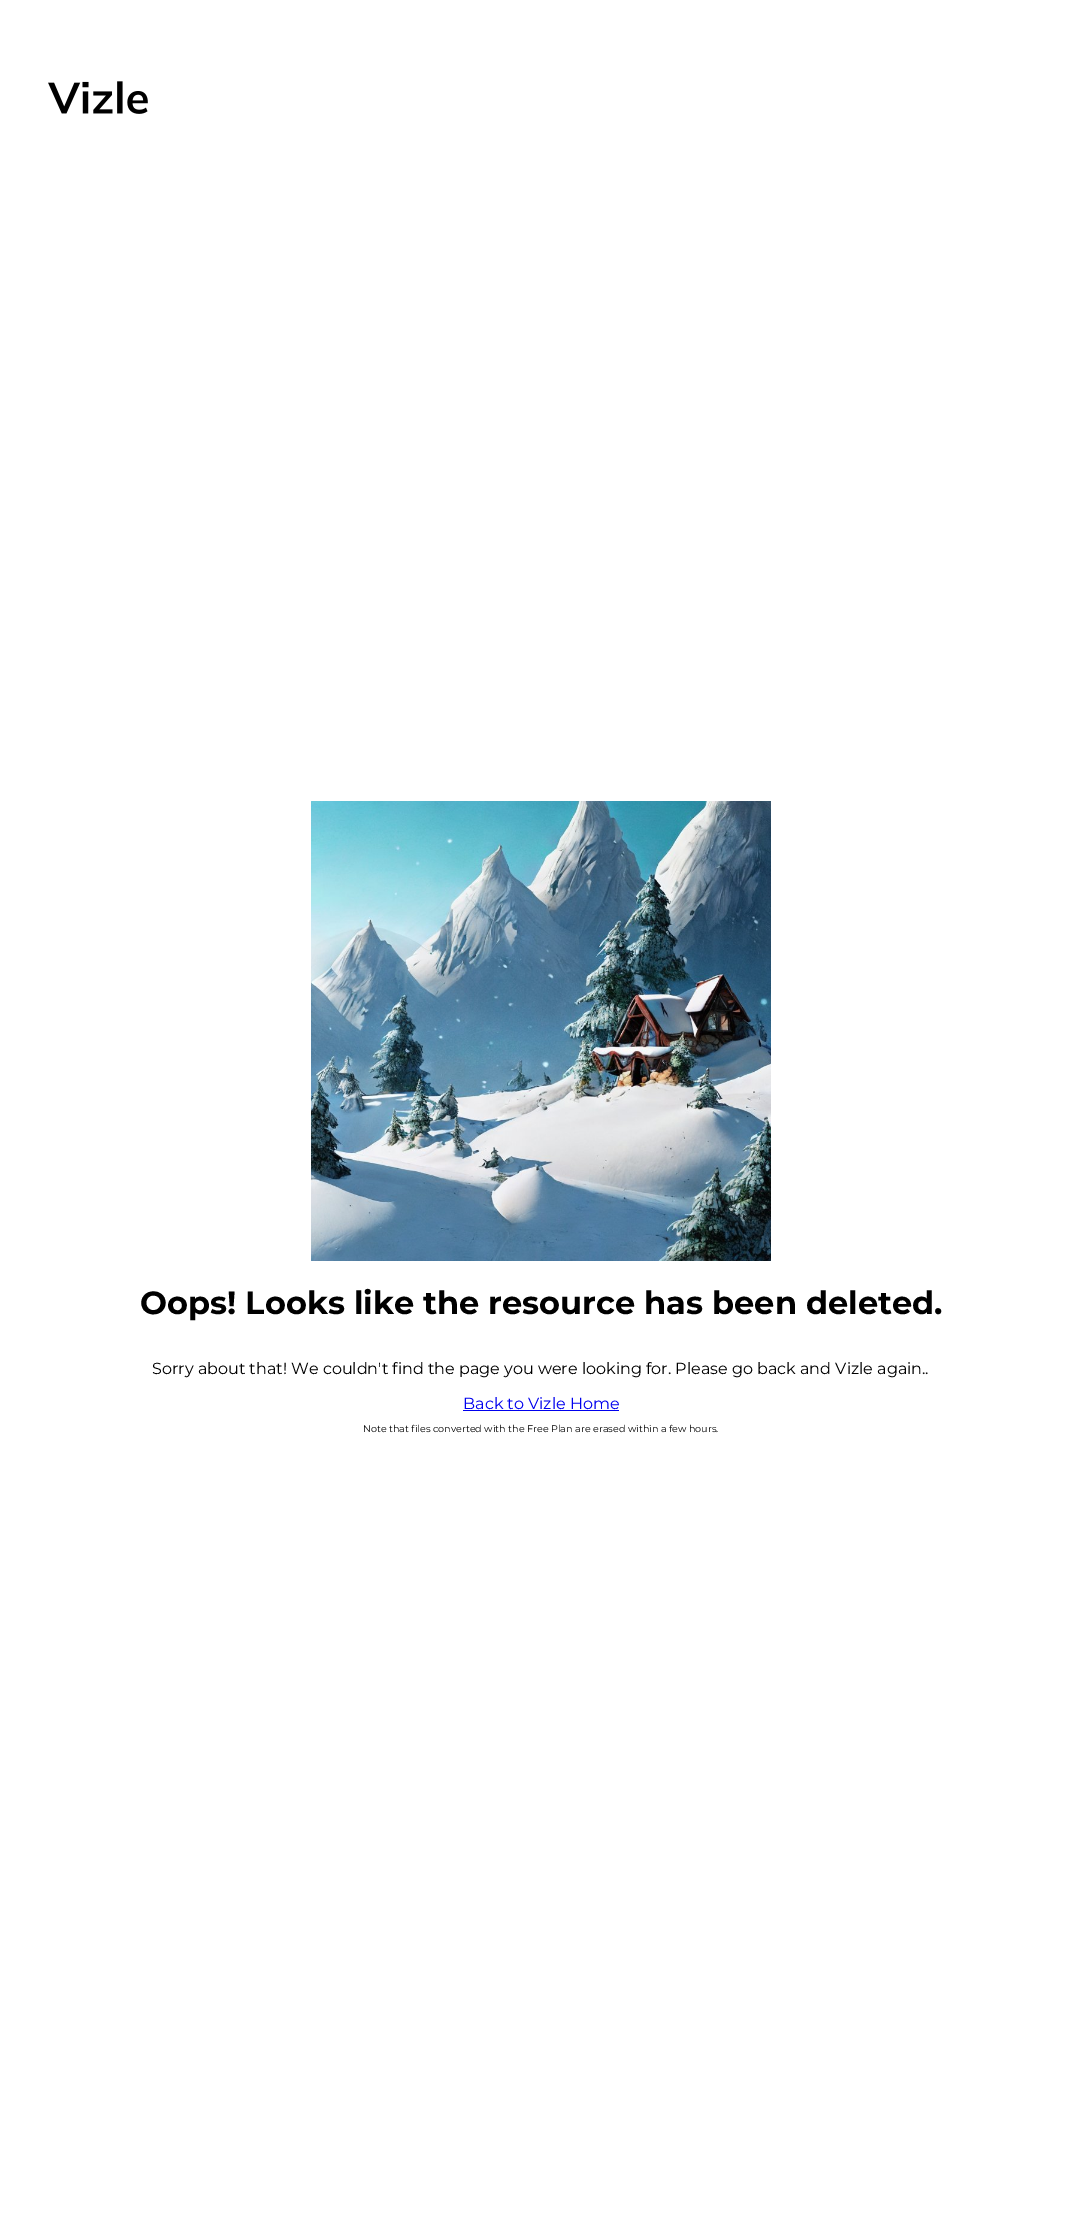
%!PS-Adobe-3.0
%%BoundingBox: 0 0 1082 2228
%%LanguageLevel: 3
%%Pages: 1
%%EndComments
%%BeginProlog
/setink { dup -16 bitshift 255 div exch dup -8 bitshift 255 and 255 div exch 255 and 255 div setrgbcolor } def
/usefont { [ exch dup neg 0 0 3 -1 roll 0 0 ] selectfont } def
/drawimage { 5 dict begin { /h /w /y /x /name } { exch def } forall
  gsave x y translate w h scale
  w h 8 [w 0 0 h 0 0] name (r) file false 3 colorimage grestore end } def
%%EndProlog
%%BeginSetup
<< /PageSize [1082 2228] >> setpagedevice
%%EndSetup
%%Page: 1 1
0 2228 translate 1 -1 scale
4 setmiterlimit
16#FFFFFF setink
0 0 1082 2228 rectfill
(img1.raw) 48 81 100 33 drawimage
(img2.raw) 311 801 460 460 drawimage
/Montserrat-Bold 32 usefont
16#000000 setink
140 1314 moveto (Oops! Looks like the resource has been deleted.) show
/Montserrat-Regular 16 usefont
152 1374 moveto (Sorry about that! We couldn't find the page you were looking for. Please go back and Vizle again..) show
16#0000EE setink
463 1409 moveto (Back to Vizle Home) show
463 1410 156 1 rectfill
/Montserrat-Regular 9.6 usefont
16#000000 setink
363 1432 moveto (Note that files converted with the Free Plan are erased within a few hours.) show
showpage
%%EOF
